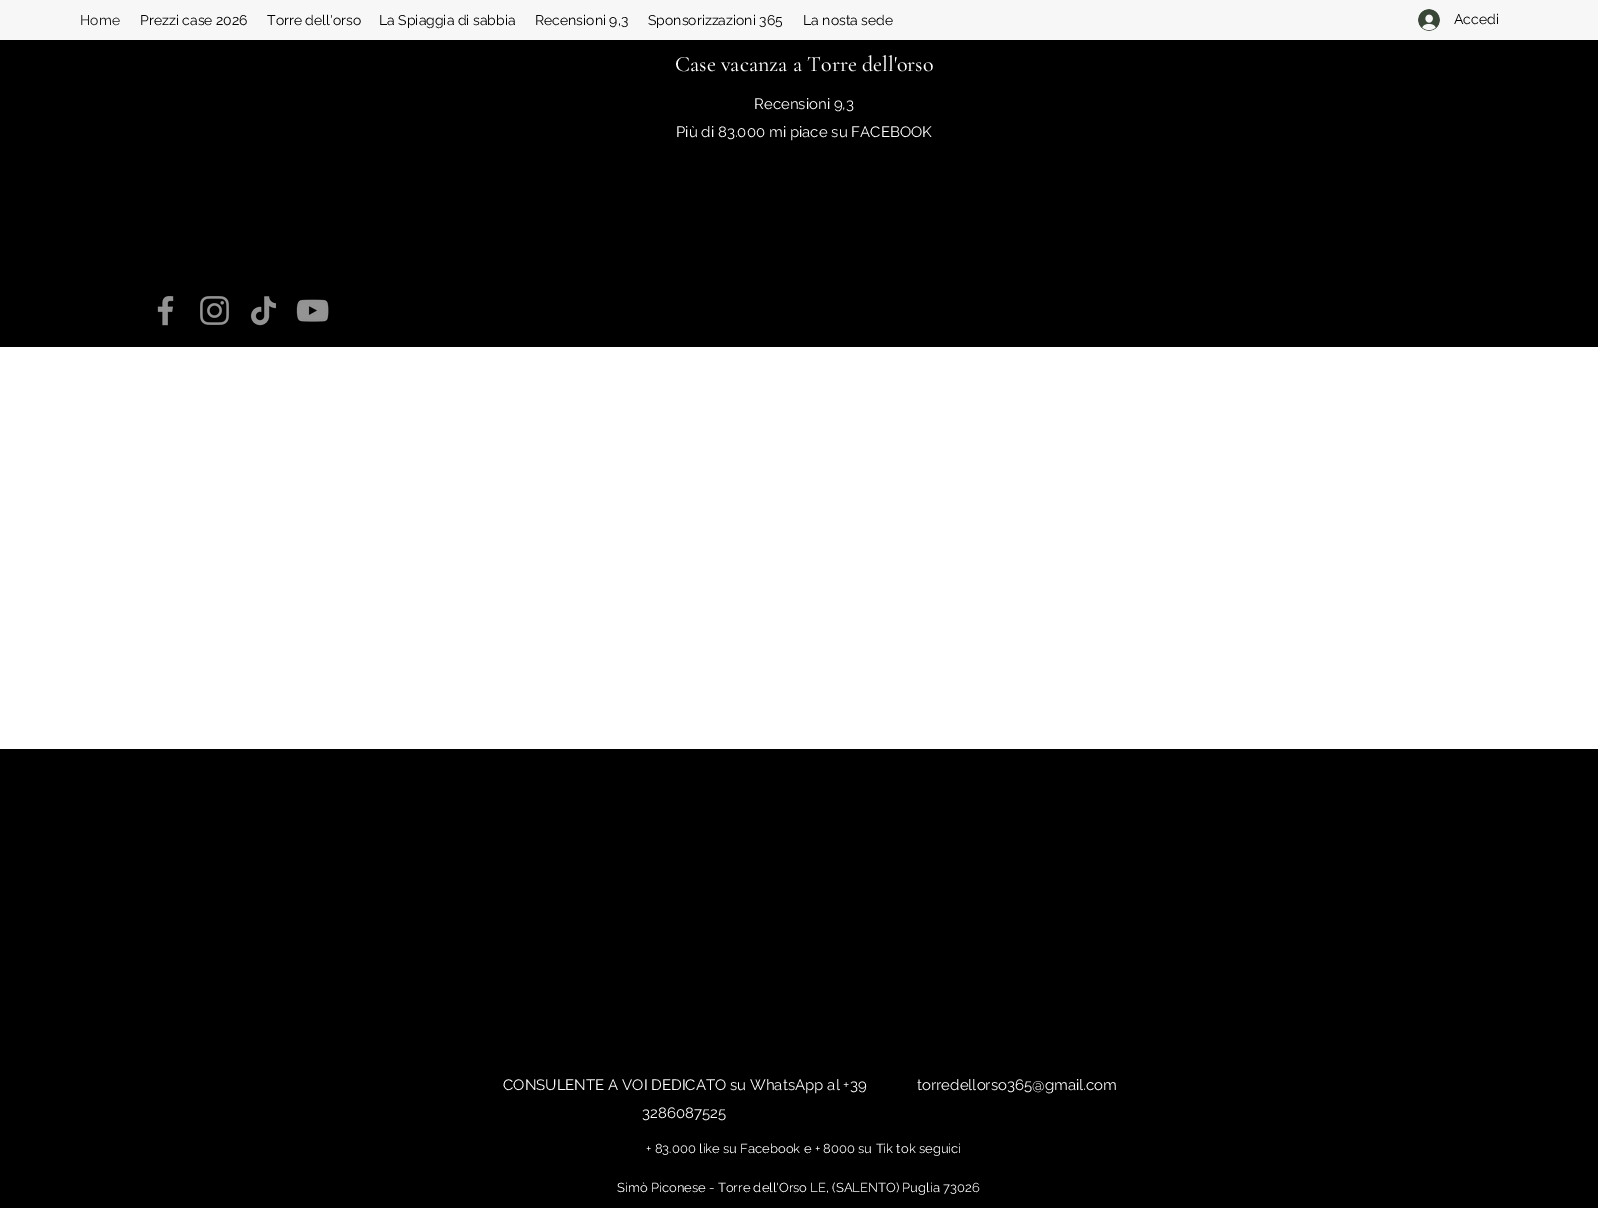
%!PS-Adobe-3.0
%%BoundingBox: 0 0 1598 1208
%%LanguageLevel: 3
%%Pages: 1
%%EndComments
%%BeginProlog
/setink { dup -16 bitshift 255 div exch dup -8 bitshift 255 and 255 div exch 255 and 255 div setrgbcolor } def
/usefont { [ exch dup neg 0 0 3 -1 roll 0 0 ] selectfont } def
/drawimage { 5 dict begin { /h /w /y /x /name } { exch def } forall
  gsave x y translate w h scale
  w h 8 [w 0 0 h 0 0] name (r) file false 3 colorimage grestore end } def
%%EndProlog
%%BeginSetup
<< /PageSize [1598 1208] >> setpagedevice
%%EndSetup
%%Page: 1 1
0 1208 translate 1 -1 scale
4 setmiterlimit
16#FFFFFF setink
0 0 1598 1208 rectfill
16#F7F7F7 setink
0 0 1598 40 rectfill
/Raleway-Regular 14 usefont
16#191919 setink
80 25 moveto (Home) show
16#000000 setink
[
    [(Prezzi case 2026) 140 25]
    [(Torre dell'orso) 267 25]
    [(La Spiaggia di sabbia) 379 25]
    [(Recensioni 9,3) 535 25]
    [(Sponsorizzazioni 365) 648 25]
    [(La nosta sede) 803 25]
] { aload pop moveto show } forall
(img1.raw) 1418 9 22 22 drawimage
1454 24 moveto (Accedi) show
0 40 1598 307 rectfill
/CormorantGaramond-Medium 22 usefont
16#FFFFFF setink
675 71 moveto (Case vacanza a Torre dell'orso) show
/Raleway-Regular 15 usefont
754 109 moveto (Recensioni 9,3) show
676 137 moveto (Più di 83.000 mi piace su FACEBOOK) show
(img2.raw) 157 296 17 30 drawimage
(img3.raw) 200 296 29 29 drawimage
(img4.raw) 250 296 27 30 drawimage
(img5.raw) 296 299 33 23 drawimage
16#000000 setink
0 749 1598 459 rectfill
16#FFFFFF setink
[
    [(CONSULENTE A VOI DEDICATO su WhatsApp al +39) 503 1090]
    [(3286087525) 642 1118]
    [(torredellorso365@gmail.com) 917 1090]
] { aload pop moveto show } forall
/Raleway-Regular 13 usefont
646 1153 moveto (+ 83.000 like su Facebook e + 8000 su Tik tok seguici) show
617 1192 moveto (Simò Piconese - Torre dell'Orso LE, \(SALENTO\) Puglia 73026) show
showpage
%%EOF
